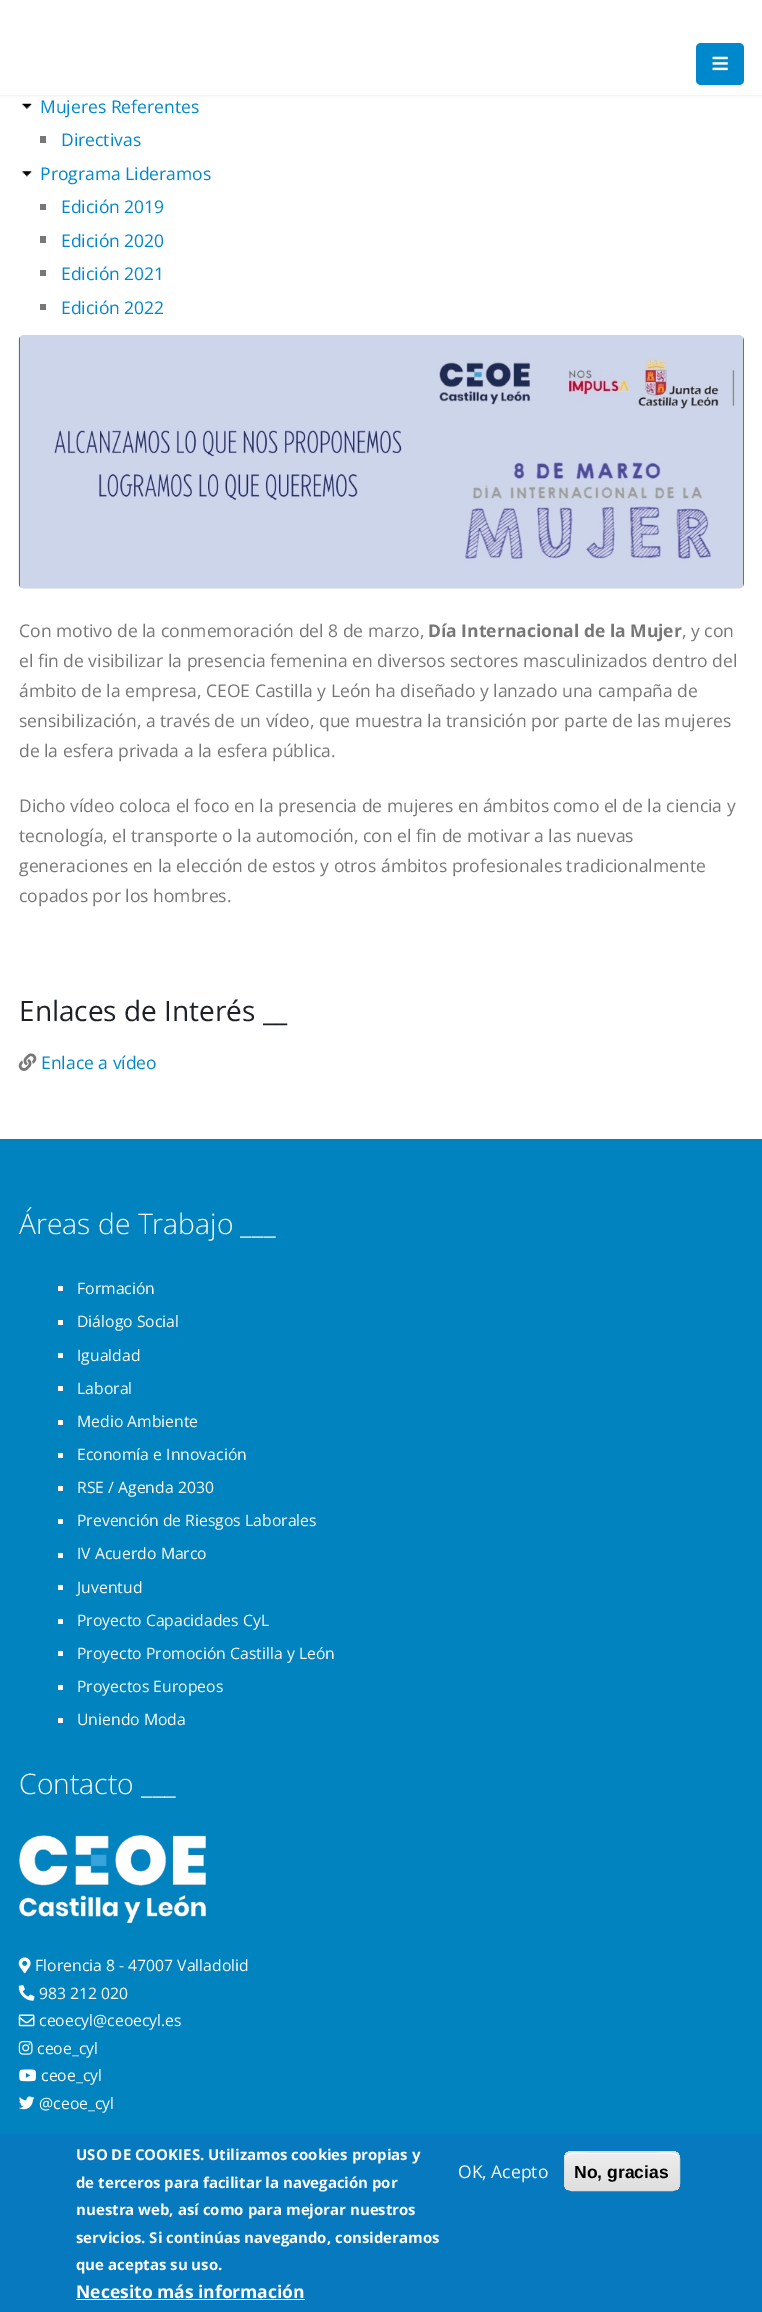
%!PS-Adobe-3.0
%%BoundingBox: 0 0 762 2312
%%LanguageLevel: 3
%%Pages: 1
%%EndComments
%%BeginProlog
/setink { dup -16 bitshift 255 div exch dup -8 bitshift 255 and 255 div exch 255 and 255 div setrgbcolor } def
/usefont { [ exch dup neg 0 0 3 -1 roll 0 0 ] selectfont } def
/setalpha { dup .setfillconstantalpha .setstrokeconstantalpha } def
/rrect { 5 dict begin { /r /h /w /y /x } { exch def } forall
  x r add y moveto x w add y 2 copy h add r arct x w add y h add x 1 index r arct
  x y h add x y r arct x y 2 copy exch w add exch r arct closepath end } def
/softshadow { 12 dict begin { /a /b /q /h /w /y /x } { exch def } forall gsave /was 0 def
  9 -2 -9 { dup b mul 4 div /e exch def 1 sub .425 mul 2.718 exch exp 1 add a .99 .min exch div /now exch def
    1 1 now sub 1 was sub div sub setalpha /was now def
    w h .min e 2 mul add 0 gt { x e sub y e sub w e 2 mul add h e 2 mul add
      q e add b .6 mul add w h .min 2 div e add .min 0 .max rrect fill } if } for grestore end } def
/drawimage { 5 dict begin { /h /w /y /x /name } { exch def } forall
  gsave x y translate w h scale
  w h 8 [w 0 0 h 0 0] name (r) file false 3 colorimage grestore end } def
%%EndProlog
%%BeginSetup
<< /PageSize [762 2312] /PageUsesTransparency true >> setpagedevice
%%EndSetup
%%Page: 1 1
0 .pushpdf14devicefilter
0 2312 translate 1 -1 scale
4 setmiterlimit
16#FFFFFF setink
0 0 762 2312 rectfill
16#000000 setink
0 -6 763 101 0 2 0.1 softshadow
16#FFFFFF setink
0 0 762 95 rectfill
16#0088CC setink
696 43 48 42 5 rrect fill
(img1.raw) 712 56 16 15 drawimage
(img2.raw) 22 103 10 6 drawimage
/OpenSans-Regular 17.5 usefont
40 113 moveto (Mujeres Referentes) show
16#777777 setink
40 136 6 7 rectfill
16#0088CC setink
61 146 moveto (Directivas) show
(img3.raw) 22 171 10 6 drawimage
40 180 moveto (Programa Lideramos) show
16#777777 setink
40 204 6 6 rectfill
16#0088CC setink
61 213 moveto (Edición 2019) show
16#777777 setink
40 236 6 7 rectfill
16#0088CC setink
61 247 moveto (Edición 2020) show
16#777777 setink
40 270 6 6 rectfill
16#0088CC setink
61 280 moveto (Edición 2021) show
16#777777 setink
40 304 6 6 rectfill
16#0088CC setink
61 314 moveto (Edición 2022) show
(img4.raw) 18 335 726 254 drawimage
16#777777 setink
19 637 moveto (Con motivo de la conmemoración del 8 de marzo,) show
/OpenSans-Bold 17.5 usefont
428 637 moveto (Día Internacional de la Mujer) show
/OpenSans-Regular 17.5 usefont
[
    [(, y con) 682 637]
    [(el fin de visibilizar la presencia femenina en diversos sectores masculinizados dentro del) 19 667]
    [(ámbito de la empresa, CEOE Castilla y León ha diseñado y lanzado una campaña de) 19 697]
    [(sensibilización, a través de un vídeo, que muestra la transición por parte de las mujeres) 19 727]
    [(de la esfera privada a la esfera pública.) 19 757]
    [(Dicho vídeo coloca el foco en la presencia de mujeres en ámbitos como el de la ciencia y) 19 812]
    [(tecnología, el transporte o la automoción, con el fin de motivar a las nuevas) 19 842]
    [(generaciones en la elección de estos y otros ámbitos profesionales tradicionalmente) 19 872]
    [(copados por los hombres.) 19 902]
] { aload pop moveto show } forall
/OpenSans-Regular 28 usefont
16#1D2127 setink
19 1021 moveto (Enlaces de Interés __) show
(img5.raw) 18 1053 19 18 drawimage
/OpenSans-Regular 17.5 usefont
16#0088CC setink
41 1069 moveto (Enlace a vídeo) show
16#0083BE setink
0 1139 762 995 rectfill
/OpenSans-Light 28.25 usefont
16#FFFFFF setink
19 1234 moveto (Áreas de Trabajo ___) show
58 1286 5 5 rectfill
/OpenSans-Regular 15.75 usefont
77 1294 moveto (Formación) show
58 1320 5 5 rectfill
77 1327 moveto (Diálogo Social) show
58 1353 5 5 rectfill
77 1361 moveto (Igualdad) show
58 1386 5 5 rectfill
77 1394 moveto (Laboral) show
58 1420 5 5 rectfill
77 1427 moveto (Medio Ambiente) show
58 1453 5 5 rectfill
77 1460 moveto (Economía e Innovación) show
58 1486 5 5 rectfill
77 1493 moveto (RSE / Agenda 2030) show
58 1519 5 5 rectfill
77 1526 moveto (Prevención de Riesgos Laborales) show
58 1553 5 5 rectfill
77 1559 moveto (IV Acuerdo Marco) show
58 1585 5 5 rectfill
77 1593 moveto (Juventud) show
58 1619 5 5 rectfill
77 1626 moveto (Proyecto Capacidades CyL) show
58 1651 5 5 rectfill
77 1659 moveto (Proyecto Promoción Castilla y León) show
58 1685 5 5 rectfill
77 1692 moveto (Proyectos Europeos) show
58 1718 5 5 rectfill
77 1725 moveto (Uniendo Moda) show
/OpenSans-Light 28.25 usefont
19 1794 moveto (Contacto ___) show
(img6.raw) 19 1835 187 88 drawimage
(img7.raw) 18 1957 13 17 drawimage
/OpenSans-Regular 15.75 usefont
35 1971 moveto (Florencia 8 - 47007 Valladolid) show
(img8.raw) 18 1985 17 16 drawimage
39 1999 moveto (983 212 020) show
(img9.raw) 18 2014 17 13 drawimage
39 2026 moveto (ceoecyl@ceoecyl.es) show
(img10.raw) 18 2040 15 15 drawimage
37 2054 moveto (ceoe_cyl) show
(img11.raw) 19 2069 17 13 drawimage
41 2081 moveto (ceoe_cyl) show
(img12.raw) 19 2096 16 14 drawimage
39 2109 moveto (@ceoe_cyl) show
16#0779BF setink
0 2134 762 178 rectfill
/OpenSans-Bold 15 usefont
16#FFFFFF setink
[
    [(USO DE COOKIES. Utilizamos cookies propias y) 76 2160]
    [(de terceros para facilitar la navegación por) 76 2188]
    [(nuestra web, así como para mejorar nuestros) 76 2215]
    [(servicios. Si continúas navegando, consideramos) 76 2243]
    [(que aceptas su uso.) 76 2270]
] { aload pop moveto show } forall
/OpenSans-Bold 17.5 usefont
76 2298 moveto (Necesito más información) show
76 2299 229 1 rectfill
/OpenSans-Regular 17.5 usefont
458 2178 moveto (OK, Acepto) show
gsave
564 2151 116 40 8 rrect clip newpath
gsave 564 2151 moveto 680 2151 lineto 680 2153 lineto 564 2153 lineto closepath clip newpath
<< /ShadingType 2 /ColorSpace /DeviceRGB /Coords [622 2115 622 2153] /Extend [true true] /Function << /FunctionType 3 /Domain [0 1] /Functions [<< /FunctionType 2 /Domain [0 1] /C0 [0.929 0.929 0.929] /C1 [0.929 0.929 0.929] /N 1 >> << /FunctionType 2 /Domain [0 1] /C0 [0.929 0.929 0.929] /C1 [0.875 0.875 0.875] /N 1 >>] /Bounds [0.05] /Encode [0 1 0 1] >> >> shfill grestore
gsave 564 2153 moveto 680 2153 lineto 680 2190 lineto 564 2190 lineto closepath clip newpath
<< /ShadingType 2 /ColorSpace /DeviceRGB /Coords [622 2153 622 2190] /Extend [true true] /Function << /FunctionType 3 /Domain [0 1] /Functions [<< /FunctionType 2 /Domain [0 1] /C0 [0.929 0.929 0.929] /C1 [0.929 0.929 0.929] /N 1 >> << /FunctionType 2 /Domain [0 1] /C0 [0.929 0.929 0.929] /C1 [0.875 0.875 0.875] /N 1 >>] /Bounds [0.05] /Encode [0 1 0 1] >> >> shfill grestore
grestore
571 2154 moveto 672 2154 lineto 676 2154 679 2157 679 2160 curveto 679 2149 662 2153 656 2153 curveto 588 2153 lineto 582 2153 565 2149 565 2160 curveto 565 2157 568 2154 571 2154 curveto closepath fill
16#DCDCDC setink
564.5 2151.5 115 39 7.5 rrect stroke
/LiberationSans-Bold 17.5 usefont
16#000000 setink
574 2178 moveto (No, gracias) show
.poppdf14devicefilter showpage
%%EOF
